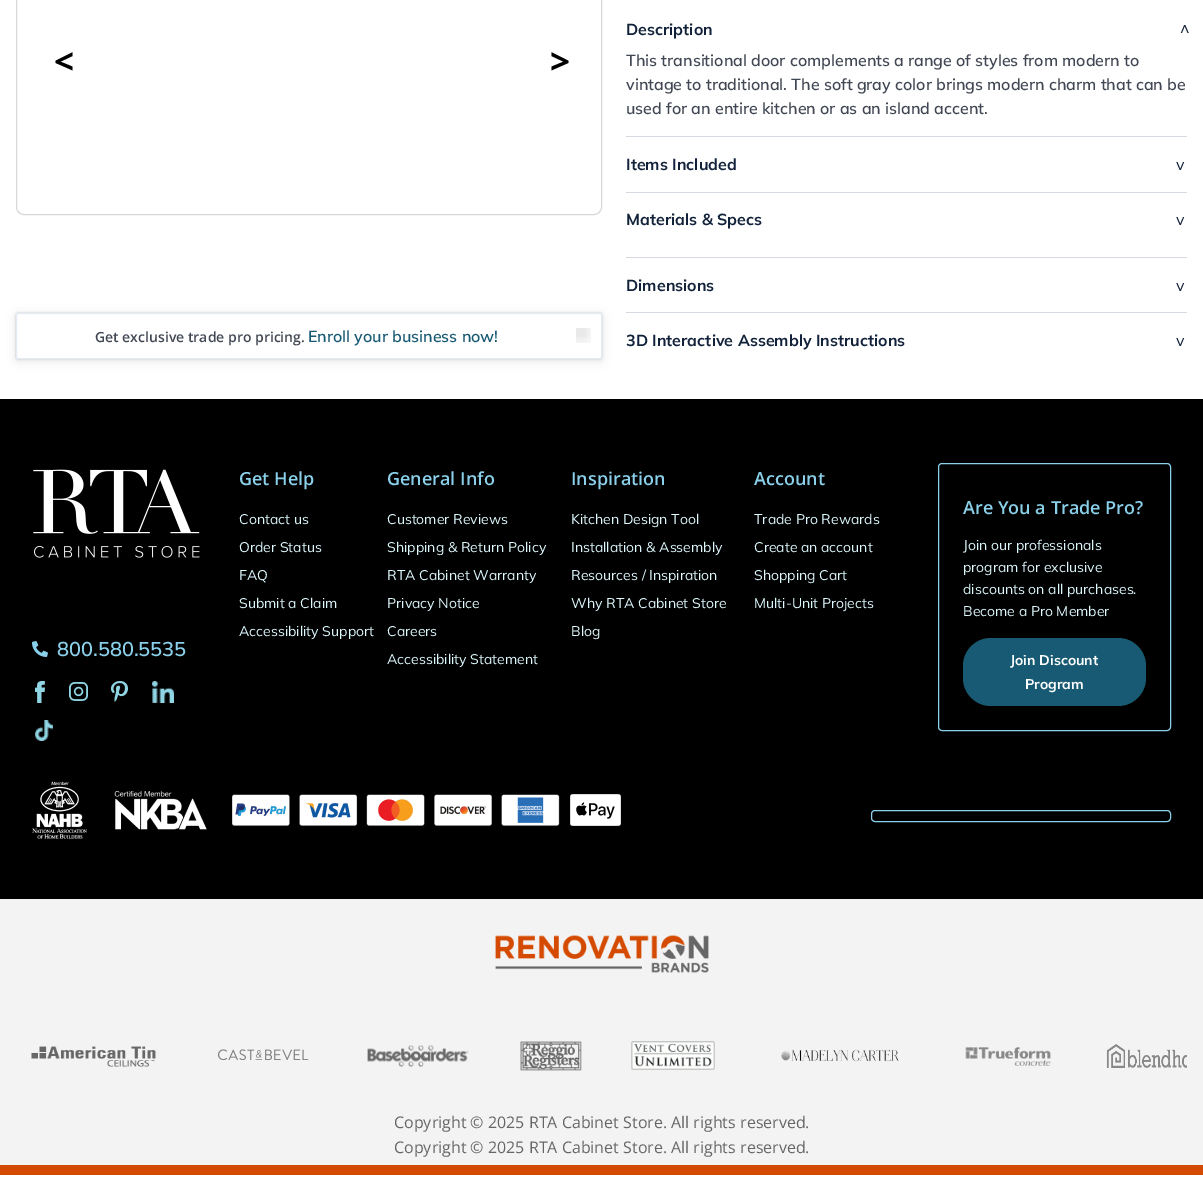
%!PS-Adobe-3.0
%%BoundingBox: 0 0 1203 1180
%%LanguageLevel: 3
%%Pages: 1
%%EndComments
%%BeginProlog
/setink { dup -16 bitshift 255 div exch dup -8 bitshift 255 and 255 div exch 255 and 255 div setrgbcolor } def
/usefont { [ exch dup neg 0 0 3 -1 roll 0 0 ] selectfont } def
/setalpha { dup .setfillconstantalpha .setstrokeconstantalpha } def
/rrect { 5 dict begin { /r /h /w /y /x } { exch def } forall
  x r add y moveto x w add y 2 copy h add r arct x w add y h add x 1 index r arct
  x y h add x y r arct x y 2 copy exch w add exch r arct closepath end } def
/softshadow { 12 dict begin { /a /b /q /h /w /y /x } { exch def } forall gsave /was 0 def
  9 -2 -9 { dup b mul 4 div /e exch def 1 sub .425 mul 2.718 exch exp 1 add a .99 .min exch div /now exch def
    1 1 now sub 1 was sub div sub setalpha /was now def
    w h .min e 2 mul add 0 gt { x e sub y e sub w e 2 mul add h e 2 mul add
      q e add b .6 mul add w h .min 2 div e add .min 0 .max rrect fill } if } for grestore end } def
/drawimage { 5 dict begin { /h /w /y /x /name } { exch def } forall
  gsave x y translate w h scale
  w h 8 [w 0 0 h 0 0] name (r) file false 3 colorimage grestore end } def
%%EndProlog
%%BeginSetup
<< /PageSize [1203 1180] /PageUsesTransparency true >> setpagedevice
%%EndSetup
%%Page: 1 1
0 .pushpdf14devicefilter
0 1180 translate 1 -1 scale
4 setmiterlimit
16#FFFFFF setink
0 0 1203 1180 rectfill
16#D8D8D8 setink
16.5 -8.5 585 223 7.5 rrect stroke
/OpenSans-Bold 35 usefont
16#000000 setink
54 74 moveto -9 0 (<) ashow
550 74 moveto -9 0 (>) ashow
gsave
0 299 moveto 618 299 lineto 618 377 lineto 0 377 lineto closepath 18 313 moveto 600 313 lineto 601 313 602 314 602 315 curveto 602 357 lineto 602 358 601 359 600 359 curveto 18 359 lineto 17 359 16 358 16 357 curveto 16 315 lineto 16 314 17 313 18 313 curveto closepath eoclip newpath
16 315 586 46 2 5 0.1 softshadow
grestore
gsave
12 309 moveto 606 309 lineto 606 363 lineto 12 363 lineto closepath 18 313 moveto 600 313 lineto 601 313 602 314 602 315 curveto 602 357 lineto 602 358 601 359 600 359 curveto 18 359 lineto 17 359 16 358 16 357 curveto 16 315 lineto 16 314 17 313 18 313 curveto closepath eoclip newpath
16 313 586 46 2 1 0.2 softshadow
grestore
16#E4EDF6 setink
16.5 313.5 585 45 1.5 rrect stroke
/OpenSans-SemiBold 14 usefont
16#414854 setink
95 342 moveto (Get exclusive trade pro pricing.) show
/Mulish-SemiBold 16 usefont
16#185A73 setink
308 342 moveto (Enroll your business now!) show
(img1.raw) 576 328 15 15 drawimage
/Mulish-Bold 16 usefont
16#12223B setink
626 35 moveto (Description) show
/Mulish-Regular 16 usefont
gsave 1189 25 translate 180 rotate 0 0 moveto 4 0 (v) ashow grestore
/Mulish-SemiBold 16 usefont
16#414854 setink
[
    [(This transitional door complements a range of styles from modern to) 626 66]
    [(vintage to traditional. The soft gray color brings modern charm that can be) 626 90]
    [(used for an entire kitchen or as an island accent.) 626 114]
] { aload pop moveto show } forall
16#D5DAE0 setink
626 136 561 1 rectfill
/Mulish-Bold 16 usefont
16#12223B setink
626 170 moveto (Items Included) show
/Mulish-Regular 16 usefont
1176 170 moveto 4 0 (v) ashow
16#D5DAE0 setink
626 192 561 1 rectfill
/Mulish-Bold 16 usefont
16#12223B setink
626 225 moveto (Materials & Specs) show
/Mulish-Regular 16 usefont
1176 225 moveto 4 0 (v) ashow
16#D5DAE0 setink
626 257 561 1 rectfill
/Mulish-Bold 16 usefont
16#12223B setink
626 291 moveto (Dimensions) show
/Mulish-Regular 16 usefont
1176 291 moveto 4 0 (v) ashow
16#D5DAE0 setink
626 312 561 1 rectfill
/Mulish-Bold 16 usefont
16#12223B setink
626 346 moveto (3D Interactive Assembly Instructions) show
/Mulish-Regular 16 usefont
1176 346 moveto 4 0 (v) ashow
16#000000 setink
0 399 1203 500 rectfill
(img2.raw) 33 469 167 89 drawimage
(img3.raw) 32 641 16 16 drawimage
/Mulish-SemiBold 20 usefont
16#8AD0EB setink
57 656 moveto (800.580.5535) show
(img4.raw) 35 681 10 22 drawimage
(img5.raw) 69 682 19 19 drawimage
(img6.raw) 111 681 17 21 drawimage
(img7.raw) 152 681 22 22 drawimage
(img8.raw) 35 720 18 21 drawimage
/OpenSans-SemiBold 18 usefont
239 485 moveto (Get Help) show
/Mulish-Regular 14 usefont
16#DEF9FE setink
[
    [(Contact us) 239 524]
    [(Order Status) 239 552]
    [(FAQ) 239 580]
    [(Submit a Claim) 239 608]
    [(Accessibility Support) 239 636]
] { aload pop moveto show } forall
/OpenSans-SemiBold 18 usefont
16#8AD0EB setink
387 485 moveto (General Info) show
/Mulish-Regular 14 usefont
16#DEF9FE setink
[
    [(Customer Reviews) 387 524]
    [(Shipping & Return Policy) 387 552]
    [(RTA Cabinet Warranty) 387 580]
    [(Privacy Notice) 387 608]
    [(Careers) 387 636]
    [(Accessibility Statement) 387 664]
] { aload pop moveto show } forall
/OpenSans-SemiBold 18 usefont
16#8AD0EB setink
571 485 moveto (Inspiration) show
/Mulish-Regular 14 usefont
16#DEF9FE setink
[
    [(Kitchen Design Tool) 571 524]
    [(Installation & Assembly) 571 552]
    [(Resources / Inspiration) 571 580]
    [(Why RTA Cabinet Store) 571 608]
    [(Blog) 571 636]
] { aload pop moveto show } forall
/OpenSans-SemiBold 18 usefont
16#8AD0EB setink
754 485 moveto (Account) show
/Mulish-Regular 14 usefont
16#DEF9FE setink
[
    [(Trade Pro Rewards) 754 524]
    [(Create an account) 754 552]
    [(Shopping Cart) 754 580]
    [(Multi-Unit Projects) 754 608]
] { aload pop moveto show } forall
16#8AD0EB setink
938.5 463.5 232 267 3.5 rrect stroke
/OpenSans-SemiBold 18 usefont
963 514 moveto (Are You a Trade Pro?) show
/Mulish-Regular 14 usefont
16#DEF9FE setink
[
    [(Join our professionals) 963 550]
    [(program for exclusive) 963 572]
    [(discounts on all purchases.) 963 594]
    [(Become a Pro Member) 963 616]
] { aload pop moveto show } forall
16#185A73 setink
963 638 183 68 28 rrect fill
/Mulish-Bold 14 usefont
16#FFFFFF setink
1010 665 moveto (Join Discount) show
1025 689 moveto (Program) show
(img9.raw) 32 781 175 58 drawimage
(img10.raw) 232 794 328 32 drawimage
(img11.raw) 570 794 51 32 drawimage
16#8AD0EB setink
871.5 810.5 299 11 3.5 rrect stroke
16#F3F3F3 setink
0 899 1203 266 rectfill
16#D44A00 setink
0 1165 1203 10 rectfill
(img12.raw) 495 935 214 38 drawimage
(img13.raw) 31 1046 125 21 drawimage
(img14.raw) 218 1049 91 11 drawimage
(img15.raw) 367 1045 102 22 drawimage
(img16.raw) 520 1041 62 30 drawimage
(img17.raw) 631 1041 84 29 drawimage
(img18.raw) 781 1049 118 13 drawimage
(img19.raw) 965 1047 86 19 drawimage
(img20.raw) 1106 1044 81 24 drawimage
/OpenSans-Regular 16 usefont
16#666666 setink
394 1128 moveto (Copyright © 2025 RTA Cabinet Store. All rights reserved.) show
394 1153 moveto (Copyright © 2025 RTA Cabinet Store. All rights reserved.) show
.poppdf14devicefilter showpage
%%EOF
